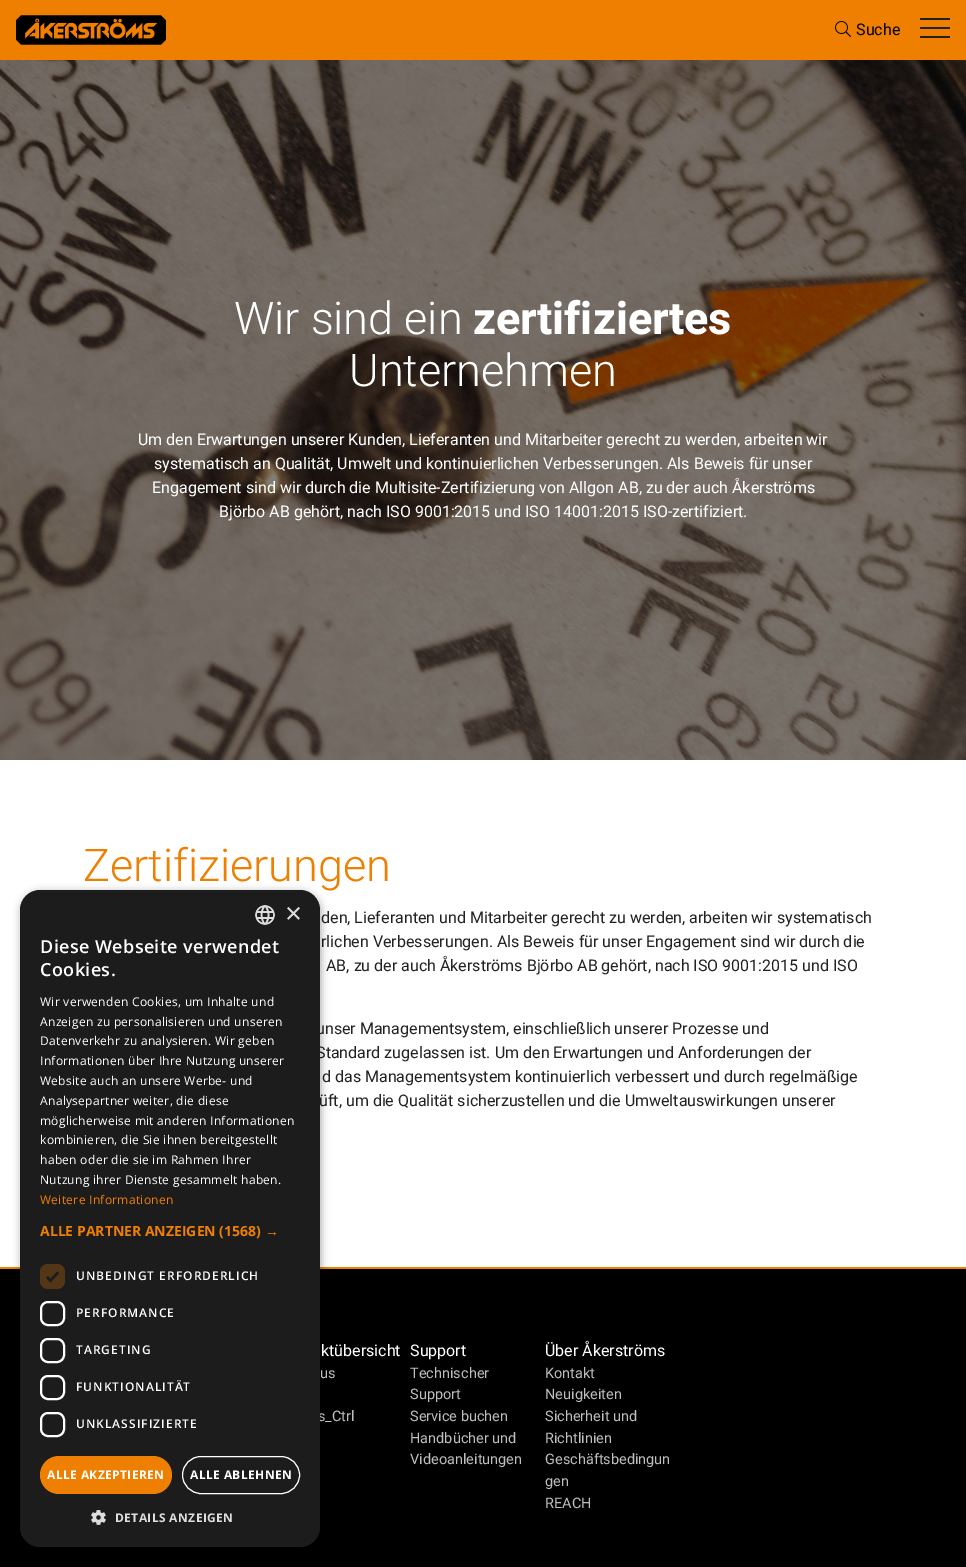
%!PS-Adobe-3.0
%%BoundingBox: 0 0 966 1567
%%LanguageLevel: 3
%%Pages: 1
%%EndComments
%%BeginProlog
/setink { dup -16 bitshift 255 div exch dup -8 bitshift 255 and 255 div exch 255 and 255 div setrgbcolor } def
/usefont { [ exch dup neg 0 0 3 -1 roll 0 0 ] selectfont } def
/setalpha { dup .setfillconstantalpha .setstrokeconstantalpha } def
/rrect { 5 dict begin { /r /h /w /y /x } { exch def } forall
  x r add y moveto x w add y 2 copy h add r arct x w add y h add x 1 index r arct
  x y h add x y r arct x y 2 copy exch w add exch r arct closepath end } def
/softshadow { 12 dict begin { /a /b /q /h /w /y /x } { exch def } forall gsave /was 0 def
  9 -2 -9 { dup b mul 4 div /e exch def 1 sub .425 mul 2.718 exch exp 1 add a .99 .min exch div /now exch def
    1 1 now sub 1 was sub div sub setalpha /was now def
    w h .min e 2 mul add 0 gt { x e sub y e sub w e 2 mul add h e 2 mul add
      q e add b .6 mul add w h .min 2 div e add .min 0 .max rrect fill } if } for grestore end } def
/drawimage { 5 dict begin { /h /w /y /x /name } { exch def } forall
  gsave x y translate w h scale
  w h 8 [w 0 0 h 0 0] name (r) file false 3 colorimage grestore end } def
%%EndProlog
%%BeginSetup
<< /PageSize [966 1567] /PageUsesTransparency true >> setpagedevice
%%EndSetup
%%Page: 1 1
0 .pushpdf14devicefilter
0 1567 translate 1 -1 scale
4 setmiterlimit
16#FFFFFF setink
0 0 966 1567 rectfill
16#EF7F00 setink
0 0 966 60 rectfill
(img1.raw) 16 15 150 30 drawimage
(img2.raw) 835 21 16 16 drawimage
/Heebo-Regular 16 usefont
16#000000 setink
856 35 moveto (Suche) show
[
    [920 18 30 2 16#222222]
    [920 27 30 2 16#222222]
    [920 36 30 2 16#222222]
] { aload pop setink rectfill } forall
(img3.raw) 0 60 966 700 drawimage
/Heebo-Light 45 usefont
16#FFFFFF setink
234 334 moveto (Wir sind ein) show
/Heebo-Bold 45 usefont
473 334 moveto (zertifiziertes) show
/Heebo-Light 45 usefont
349 386 moveto (Unternehmen) show
/Heebo-Regular 16 usefont
[
    [(Um den Erwartungen unserer Kunden, Lieferanten und Mitarbeiter gerecht zu werden, arbeiten wir) 138 445]
    [(systematisch an Qualität, Umwelt und kontinuierlichen Verbesserungen. Als Beweis für unser) 154 469]
    [(Engagement sind wir durch die Multisite-Zertifizierung von Allgon AB, zu der auch Åkerströms) 152 493]
    [(Björbo AB gehört, nach ISO 9001:2015 und ISO 14001:2015 ISO-zertifiziert.) 219 517]
] { aload pop moveto show } forall
/Heebo-Light 45 usefont
16#EF7F00 setink
83 881 moveto (Zertifizierungen) show
/Heebo-Regular 16 usefont
16#222222 setink
[
    [(den, Lieferanten und Mitarbeiter gerecht zu werden, arbeiten wir systematisch) 321 923]
    [(rlichen Verbesserungen. Als Beweis für unser Engagement sind wir durch die) 321 947]
    [(AB, zu der auch Åkerströms Björbo AB gehört, nach ISO 9001:2015 und ISO) 326 971]
    [(unser Managementsystem, einschließlich unserer Prozesse und) 316 1034]
    [(Standard zugelassen ist. Um den Erwartungen und Anforderungen der) 316 1058]
    [(d das Managementsystem kontinuierlich verbessert und durch regelmäßige) 322 1082]
    [(üft, um die Qualität sicherzustellen und die Umweltauswirkungen unserer) 319 1106]
] { aload pop moveto show } forall
16#000000 setink
0 1269 966 298 rectfill
16#EF7F00 setink
0 1267 966 2 rectfill
16#000000 setink
21 892 300 657 20 4 0.35 softshadow
/Heebo-Regular 14.5 usefont
16#BFBFBF setink
318 1421 moveto (s_Ctrl) show
16#1C1C1C setink
20 890 300 657 20 rrect fill
(img4.raw) 255 905 20 20 drawimage
/LiberationSans-Regular 29 usefont
16#DDDDDD setink
285 923 moveto (×) show
/OpenSans-SemiBold 18 usefont
16#FFFFFF setink
40 953 moveto 0.4 0 (Diese Webseite verwendet) ashow
40 976 moveto 0.4 0 (Cookies.) ashow
/OpenSans-Regular 12 usefont
40 1006 moveto 0.3 0 (Wir verwenden Cookies, um Inhalte und) ashow
40 1026 moveto 0.3 0 (Anzeigen zu personalisieren und unseren) ashow
40 1045 moveto 0.3 0 (Datenverkehr zu analysieren. Wir geben) ashow
40 1065 moveto 0.3 0 (Informationen über Ihre Nutzung unserer) ashow
40 1085 moveto 0.3 0 (Website auch an unsere Werbe- und) ashow
40 1105 moveto 0.3 0 (Analysepartner weiter, die diese) ashow
40 1125 moveto 0.3 0 (möglicherweise mit anderen Informationen) ashow
40 1144 moveto 0.3 0 (kombinieren, die Sie ihnen bereitgestellt) ashow
40 1164 moveto 0.3 0 (haben oder die sie im Rahmen Ihrer) ashow
40 1184 moveto 0.3 0 (Nutzung ihrer Dienste gesammelt haben.) ashow
16#EF7F00 setink
40 1204 moveto 0.3 0 (Weitere Informationen) ashow
/OpenSans-Bold 14 usefont
40 1236 moveto (ALLE PARTNER ANZEIGEN \(1568\)) show
/LiberationSans-Bold 14 usefont
265 1236 moveto (→) show
16#533615 setink
40 1264 25 25 8 rrect fill
16#1C1C1C setink
2.6 setlinewidth
47 1277 moveto 50.5 1280.5 lineto 58 1272.5 lineto stroke
/OpenSans-SemiBold 12 usefont
16#FFFFFF setink
76 1280 moveto 1 0 (UNBEDINGT ERFORDERLICH) ashow
2 setlinewidth
41 1302 23 23 7 rrect stroke
76 1317 moveto 1 0 (PERFORMANCE) ashow
41 1339 23 23 7 rrect stroke
76 1354 moveto 1 0 (TARGETING) ashow
41 1376 23 23 7 rrect stroke
76 1391 moveto 1 0 (FUNKTIONALITÄT) ashow
41 1413 23 23 7 rrect stroke
76 1428 moveto 1 0 (UNKLASSIFIZIERTE) ashow
16#EF7F00 setink
40 1456 132 38 19 rrect fill
/OpenSans-Bold 12 usefont
16#FFFFFF setink
47 1479 moveto 0.4 0 (ALLE AKZEPTIEREN) ashow
1 setlinewidth
182.5 1456.5 117 37 18.5 rrect stroke
190 1479 moveto 0.4 0 (ALLE ABLEHNEN) ashow
(img5.raw) 91 1510 15 15 drawimage
16#DDDDDD setink
115 1522 moveto 0.4 0 (DETAILS ANZEIGEN) ashow
/Heebo-Regular 16 usefont
16#FFFFFF setink
321 1356 moveto (ktübersicht) show
/Heebo-Regular 14.5 usefont
16#BFBFBF setink
320 1378 moveto (us) show
/Heebo-Regular 16 usefont
16#FFFFFF setink
410 1356 moveto (Support) show
/Heebo-Regular 14.5 usefont
16#BFBFBF setink
[
    [(Technischer) 410 1378]
    [(Support) 410 1399]
    [(Service buchen) 410 1421]
    [(Handbücher und) 410 1443]
    [(Videoanleitungen) 410 1464]
] { aload pop moveto show } forall
/Heebo-Regular 16 usefont
16#FFFFFF setink
545 1356 moveto (Über Åkerströms) show
/Heebo-Regular 14.5 usefont
16#BFBFBF setink
[
    [(Kontakt) 545 1378]
    [(Neuigkeiten) 545 1399]
    [(Sicherheit und) 545 1421]
    [(Richtlinien) 545 1443]
    [(Geschäftsbedingun) 545 1464]
    [(gen) 545 1486]
    [(REACH) 545 1508]
] { aload pop moveto show } forall
.poppdf14devicefilter showpage
%%EOF
